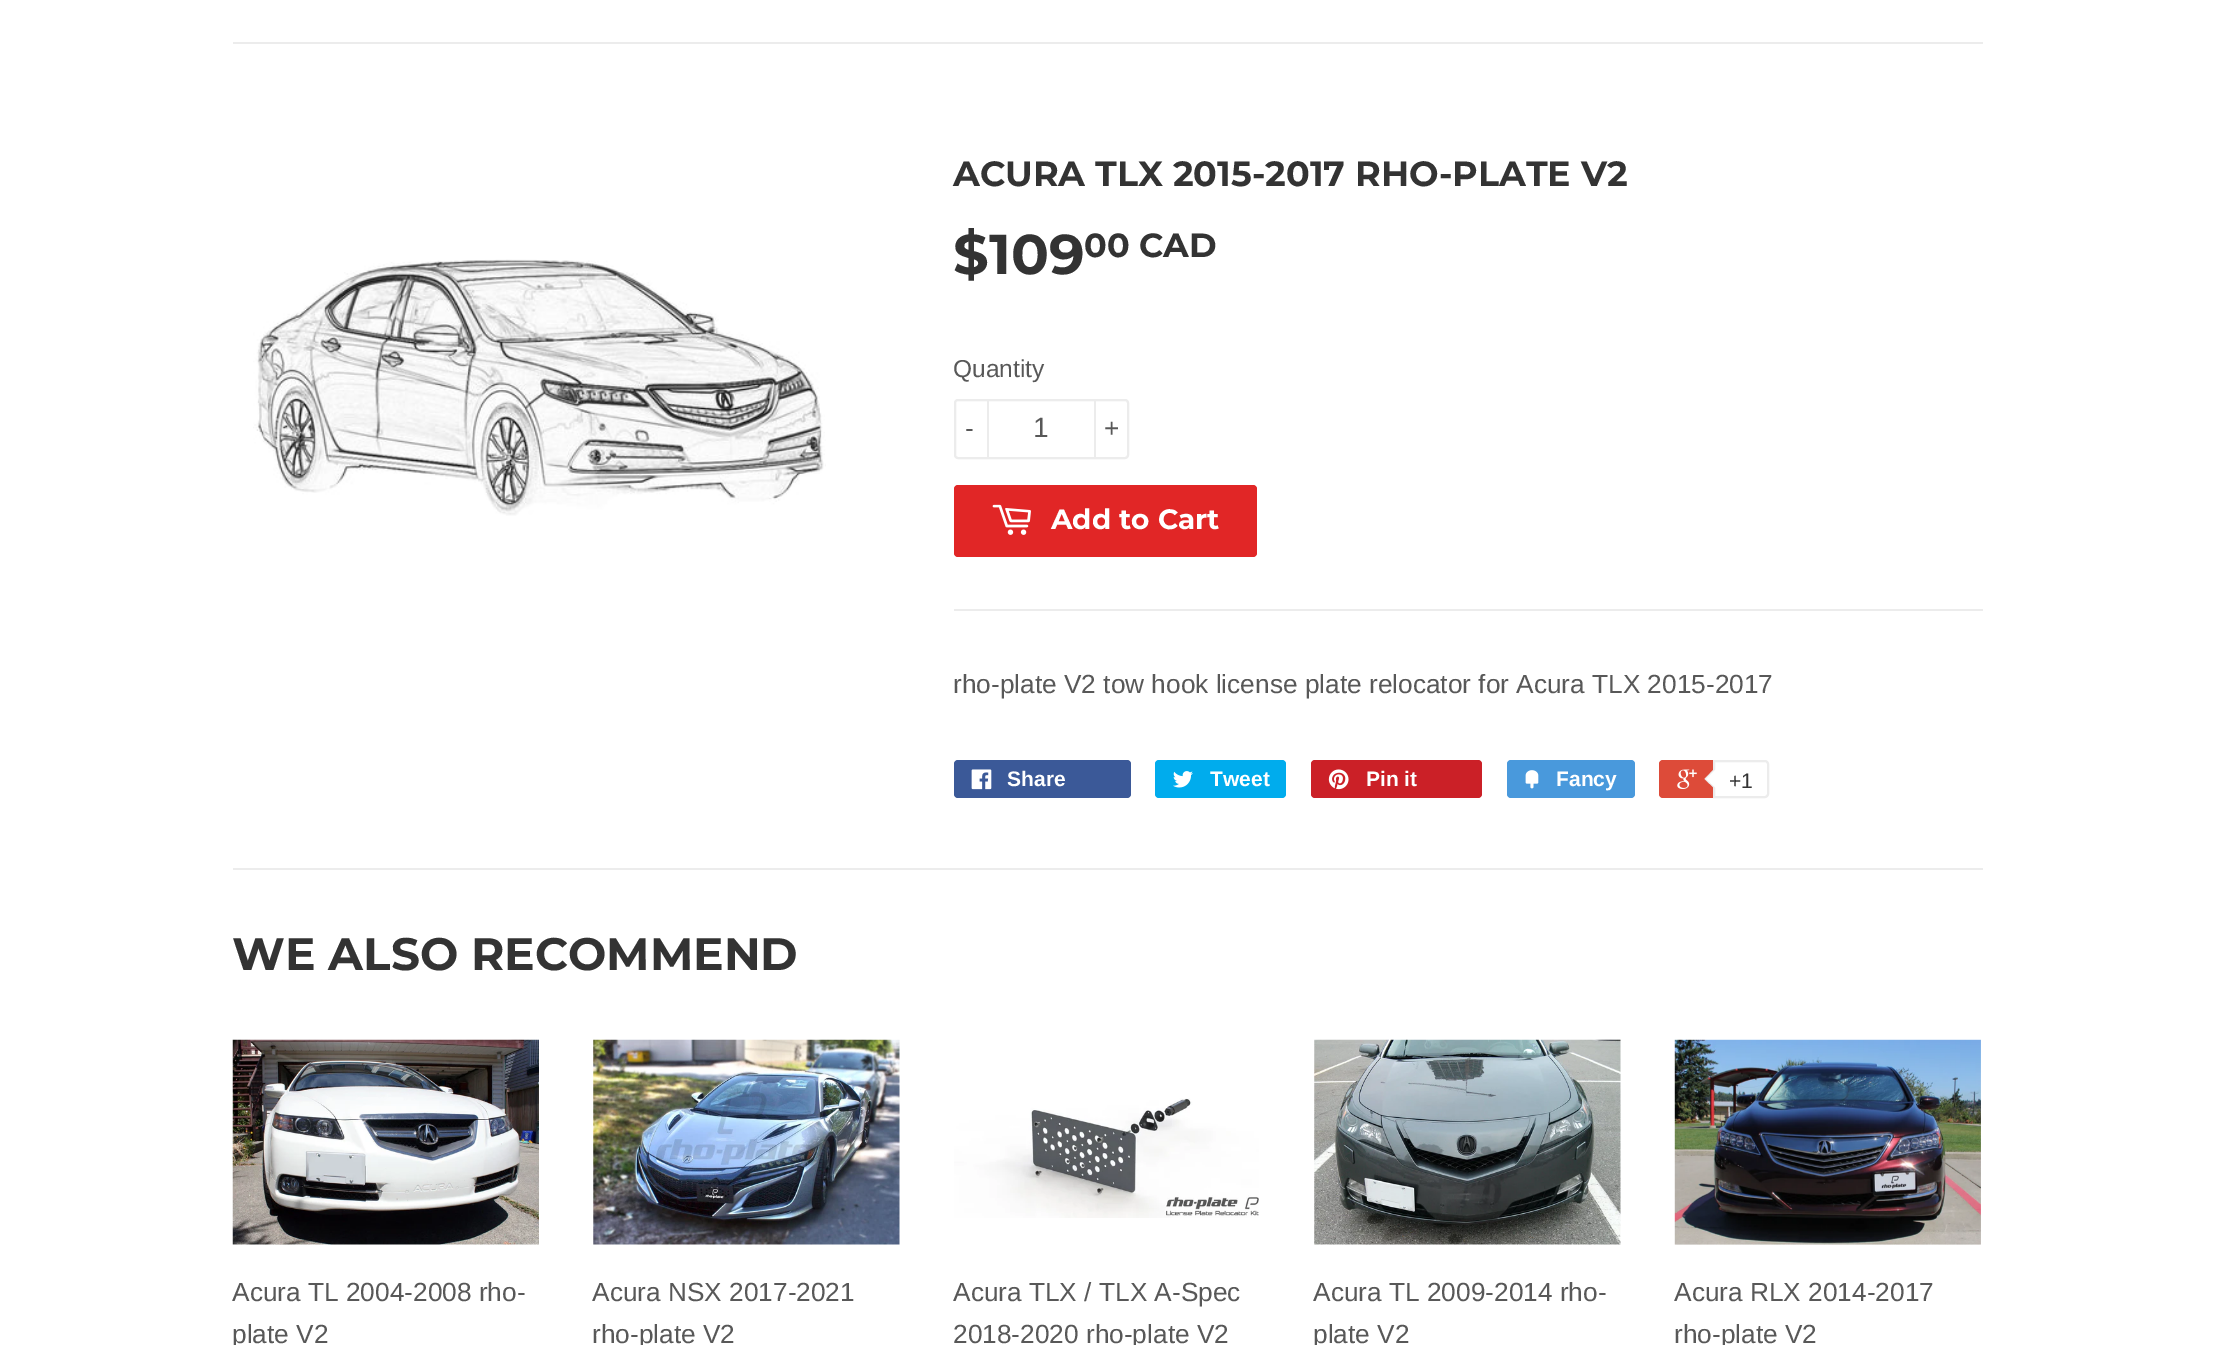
%!PS-Adobe-3.0
%%BoundingBox: 0 0 2213 1345
%%LanguageLevel: 3
%%Pages: 1
%%EndComments
%%BeginProlog
/setink { dup -16 bitshift 255 div exch dup -8 bitshift 255 and 255 div exch 255 and 255 div setrgbcolor } def
/usefont { [ exch dup neg 0 0 3 -1 roll 0 0 ] selectfont } def
/rrect { 5 dict begin { /r /h /w /y /x } { exch def } forall
  x r add y moveto x w add y 2 copy h add r arct x w add y h add x 1 index r arct
  x y h add x y r arct x y 2 copy exch w add exch r arct closepath end } def
/drawimage { 5 dict begin { /h /w /y /x /name } { exch def } forall
  gsave x y translate w h scale
  w h 8 [w 0 0 h 0 0] name (r) file false 3 colorimage grestore end } def
%%EndProlog
%%BeginSetup
<< /PageSize [2213 1345] >> setpagedevice
%%EndSetup
%%Page: 1 1
0 1345 translate 1 -1 scale
4 setmiterlimit
16#FFFFFF setink
0 0 2213 1345 rectfill
16#ECECEC setink
233 42 1750 2 rectfill
(img1.raw) 253 259 573 257 drawimage
/Montserrat-Thin 35 usefont
16#333333 setink
953 186 moveto (ACURA TLX 2015-2017 RHO-PLATE V2) show
/Montserrat-Thin 56 usefont
953 274 moveto ($109) show
/Montserrat-Thin 33.5 usefont
1084 257 moveto (00 CAD) show
/LiberationSans-Regular 24.5 usefont
16#585858 setink
953 377 moveto (Quantity) show
16#ECECEC setink
2 setlinewidth
955 400 173 58 3 rrect stroke
987 399 2 60 rectfill
/LiberationSans-Regular 26.25 usefont
16#585858 setink
965 437 moveto (-) show
/LiberationSans-Regular 28 usefont
1033 437 moveto (1) show
16#ECECEC setink
1094 399 2 60 rectfill
/LiberationSans-Regular 26.25 usefont
16#585858 setink
1104 437 moveto (+) show
16#E12626 setink
954 485 303 72 4 rrect fill
(img2.raw) 992 504 39 31 drawimage
/Montserrat-Thin 28 usefont
16#FFFFFF setink
1051 529 moveto (Add to Cart) show
16#ECECEC setink
954 609 1029 2 rectfill
/LiberationSans-Regular 26.25 usefont
16#585858 setink
953 693 moveto (rho-plate V2 tow hook license plate relocator for Acura TLX 2015-2017) show
16#3B5998 setink
954 760 177 38 4 rrect fill
(img3.raw) 971 769 21 21 drawimage
/LiberationSans-Bold 21 usefont
16#FFFFFF setink
1007 786 moveto (Share) show
16#00ACED setink
1155 760 131 38 4 rrect fill
(img4.raw) 1173 771 20 17 drawimage
16#FFFFFF setink
1210 786 moveto (Tweet) show
16#CB2027 setink
1311 760 171 38 4 rrect fill
(img5.raw) 1328 769 21 21 drawimage
16#FFFFFF setink
1366 786 moveto (Pin it) show
16#4999DC setink
1507 760 128 38 4 rrect fill
(img6.raw) 1525 770 14 19 drawimage
16#FFFFFF setink
1556 786 moveto (Fancy) show
16#DD4B39 setink
1659 760 107 38 4 rrect fill
(img7.raw) 1677 769 20 20 drawimage
16#FFFFFF setink
1714 761 moveto 1765 761 lineto 1766.5 761 1768 762.5 1768 764 curveto 1768 794 lineto 1768 795.5 1766.5 797 1765 797 curveto 1714 797 lineto closepath gsave fill grestore
16#ECECEC setink
stroke
1715 768 moveto 1715 789 lineto 1704.5 779 lineto closepath fill
16#FFFFFF setink
1717 768 moveto 1717 789 lineto 1706 779 lineto closepath fill
/LiberationSans-Regular 21 usefont
16#333333 setink
1729 788 moveto (+1) show
16#ECECEC setink
233 868 1750 2 rectfill
/Montserrat-Thin 45.5 usefont
16#333333 setink
232 970 moveto (WE ALSO RECOMMEND) show
(img8.raw) 232 1039 307 206 drawimage
/LiberationSans-Regular 26.25 usefont
16#585858 setink
232 1301 moveto (Acura TL 2004-2008 rho-) show
232 1343 moveto (plate V2) show
(img9.raw) 593 1039 307 206 drawimage
592 1301 moveto (Acura NSX 2017-2021) show
592 1343 moveto (rho-plate V2) show
(img10.raw) 954 1098 305 120 drawimage
953 1301 moveto (Acura TLX / TLX A-Spec) show
953 1343 moveto (2018-2020 rho-plate V2) show
(img11.raw) 1314 1039 307 206 drawimage
1313 1301 moveto (Acura TL 2009-2014 rho-) show
1313 1343 moveto (plate V2) show
(img12.raw) 1674 1039 307 206 drawimage
1674 1301 moveto (Acura RLX 2014-2017) show
1674 1343 moveto (rho-plate V2) show
showpage
%%EOF
